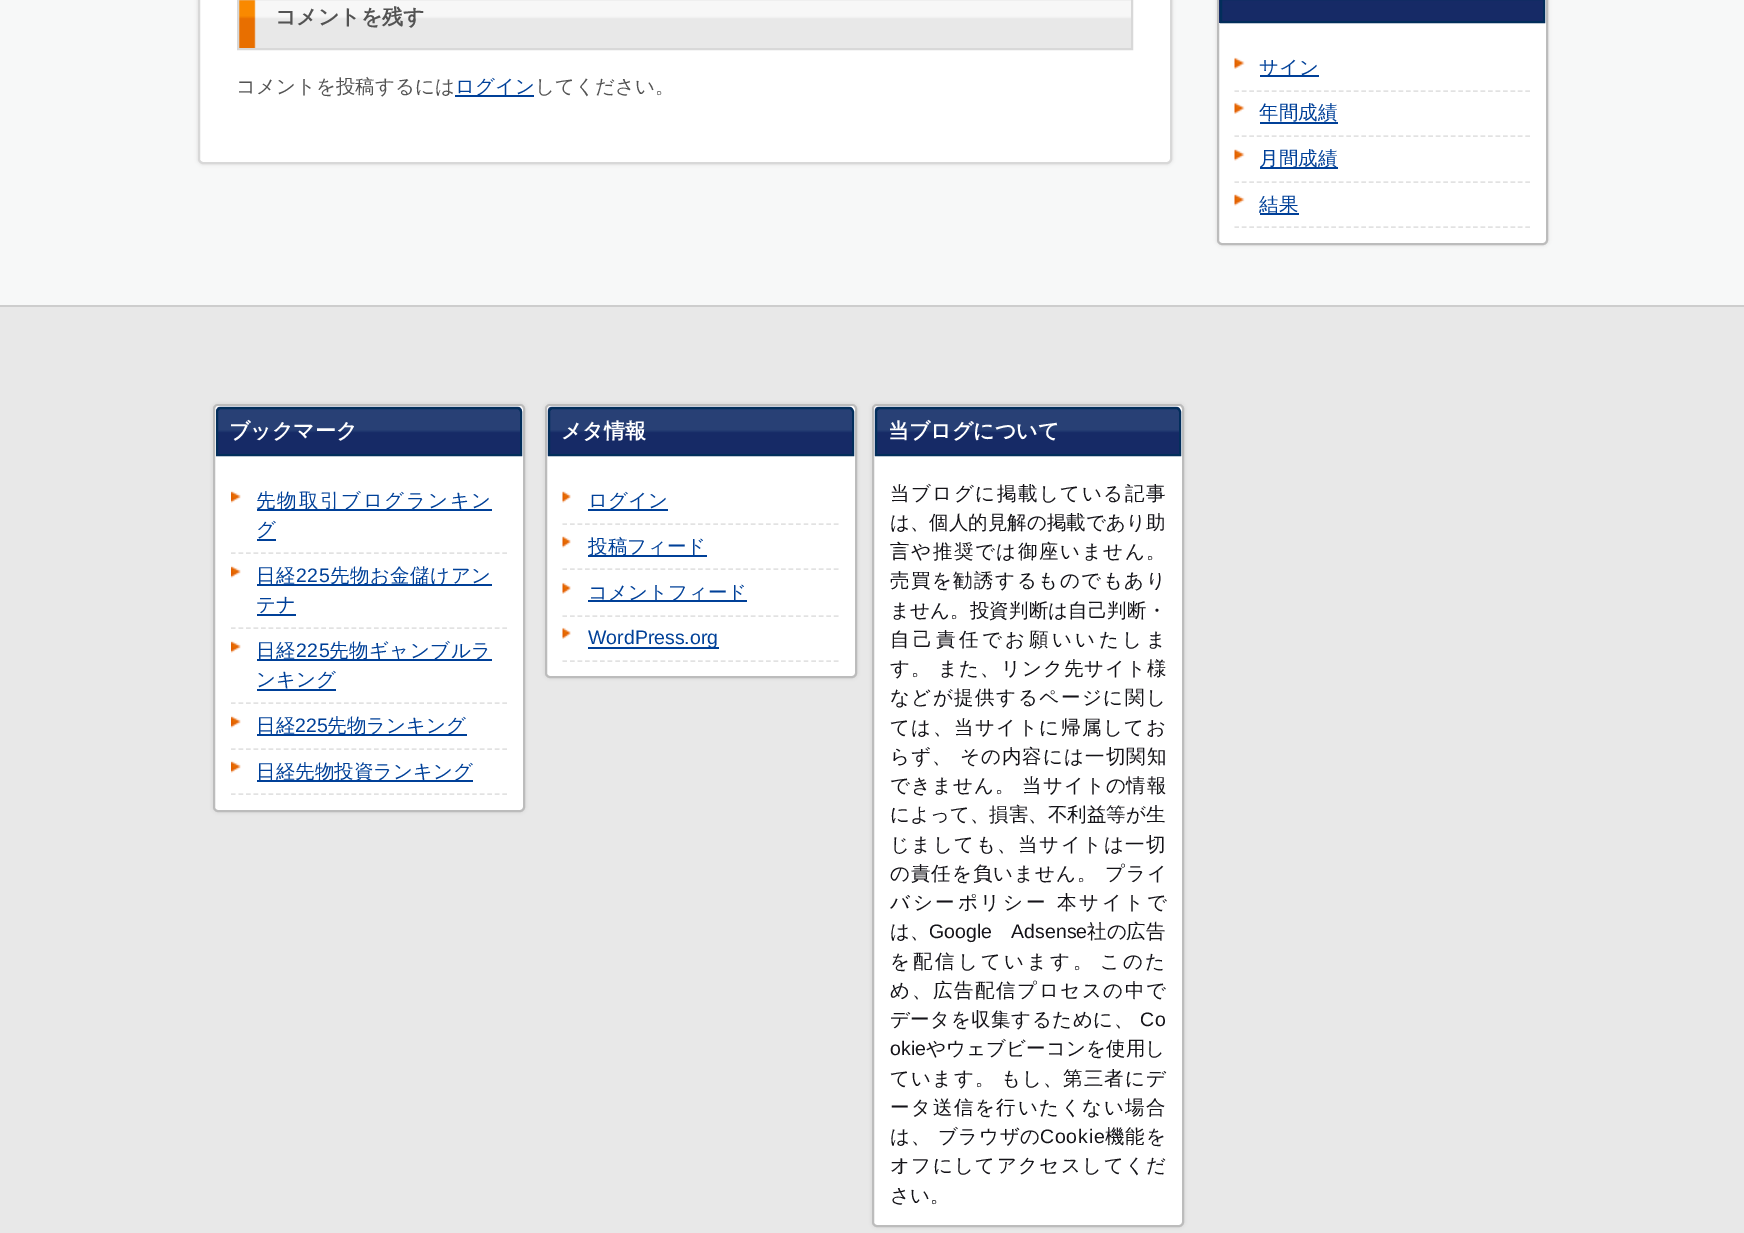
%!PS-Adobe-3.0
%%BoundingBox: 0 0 1744 1233
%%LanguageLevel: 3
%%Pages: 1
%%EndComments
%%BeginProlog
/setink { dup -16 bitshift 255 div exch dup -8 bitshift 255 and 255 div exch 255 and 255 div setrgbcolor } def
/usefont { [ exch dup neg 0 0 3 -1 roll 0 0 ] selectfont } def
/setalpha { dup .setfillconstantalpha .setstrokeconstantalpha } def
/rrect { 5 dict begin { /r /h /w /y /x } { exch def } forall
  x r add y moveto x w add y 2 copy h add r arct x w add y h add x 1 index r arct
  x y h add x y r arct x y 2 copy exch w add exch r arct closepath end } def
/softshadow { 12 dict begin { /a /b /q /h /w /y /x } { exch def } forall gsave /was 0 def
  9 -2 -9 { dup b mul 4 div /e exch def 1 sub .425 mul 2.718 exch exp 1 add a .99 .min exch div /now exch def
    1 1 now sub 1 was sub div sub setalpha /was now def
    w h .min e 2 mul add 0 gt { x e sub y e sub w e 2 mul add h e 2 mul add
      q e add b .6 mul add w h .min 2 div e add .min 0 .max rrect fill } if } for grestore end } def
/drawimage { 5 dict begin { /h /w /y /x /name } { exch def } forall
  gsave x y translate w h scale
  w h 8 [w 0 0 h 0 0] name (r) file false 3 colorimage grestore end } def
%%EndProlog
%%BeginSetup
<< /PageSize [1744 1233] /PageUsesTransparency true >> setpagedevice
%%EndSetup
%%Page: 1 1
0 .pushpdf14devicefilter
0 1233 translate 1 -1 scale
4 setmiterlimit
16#F7F8F8 setink
0 0 1744 1233 rectfill
16#CDCDCD setink
198 -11 974 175 5 2 0.75 softshadow
16#FFFFFF setink
199 -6 moveto 1171 -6 lineto 1171 159 lineto 1171 161 1169 163 1167 163 curveto 203 163 lineto 201 163 199 161 199 159 curveto closepath gsave fill grestore
16#D8D8D8 setink
2 setlinewidth
stroke
(img1.raw) 239 0 892 48 drawimage
238 -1 894 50 rectstroke
/WenQuanYiZenHei-Bold 21 usefont
16#535353 setink
275 24 moveto (コメントを残す) show
/WenQuanYiZenHei-Medium 19.5 usefont
236 93 moveto (コメントを投稿するには) show
16#004098 setink
455 95 79 2 rectfill
455 93 moveto (ログイン) show
16#535353 setink
535 93 moveto (してください。) show
16#CDCDCD setink
1217 -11 331 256 5 2 0.75 softshadow
16#FFFFFF setink
1218 -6 329 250 4 rrect gsave fill grestore
16#BCBCBC setink
stroke
16#162A66 setink
1219 0 324 23 rectfill
16#022E5B setink
1221 -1 323 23 rectstroke
(img2.raw) 1234 57 11 12 drawimage
16#004098 setink
1260 75 59 2 rectfill
1259 74 moveto (サイン) show
16#E2E2E2 setink
1.5 setlinewidth
[4.5 2.96] 0 setdash
1234.5 91 moveto 1530 91 lineto stroke
(img2.raw) 1234 102 11 12 drawimage
16#004098 setink
1259 119 moveto (年間成績) show
1260 122 78 2 rectfill
16#E2E2E2 setink
1234.5 136 moveto 1530 136 lineto stroke
(img3.raw) 1234 149 11 12 drawimage
16#004098 setink
1260 167 78 2 rectfill
1259 165 moveto (月間成績) show
16#E2E2E2 setink
1234.5 182 moveto 1530 182 lineto stroke
1234.5 227 moveto 1530 227 lineto stroke
(img3.raw) 1234 194 11 12 drawimage
16#004098 setink
1260 213 39 2 rectfill
1259 211 moveto (結果) show
16#E8E8E8 setink
0 307 1744 926 rectfill
16#CDCDCD setink
0 305 1744 2 rectfill
213 404 312 408 5 2 0.75 softshadow
16#FFFFFF setink
214 405 310 406 4 rrect gsave fill grestore
16#BCBCBC setink
2 setlinewidth
[] 0 setdash
stroke
(img4.raw) 216 406 306 48 drawimage
16#022E5B setink
221 408 moveto 517 408 lineto 519 408 521 410 521 412 curveto 521 455 lineto 217 455 lineto 217 412 lineto 217 410 219 408 221 408 curveto closepath stroke
/WenQuanYiZenHei-Bold 21 usefont
16#FFFFFF setink
229 438 moveto (ブックマーク) show
(img5.raw) 231 490 10 13 drawimage
16#004098 setink
257 509 235 2 rectfill
/WenQuanYiZenHei-Medium 19.5 usefont
256 507 moveto 1.75 0 (先物取引ブログランキン) ashow
256 536 moveto (グ) show
257 539 19 2 rectfill
16#E2E2E2 setink
1.5 setlinewidth
[4.5 3.04] 0 setdash
231 553 moveto 507 553 lineto stroke
(img5.raw) 231 565 10 13 drawimage
16#004098 setink
257 584 235 2 rectfill
256 582 moveto 0.5 0 (日経) ashow
/LiberationSans-Regular 19.5 usefont
296 582 moveto 0.5 0 (225) ashow
/WenQuanYiZenHei-Medium 19.5 usefont
330 582 moveto 0.5 0 (先物お金儲けアン) ashow
256 611 moveto (テナ) show
257 614 39 2 rectfill
16#E2E2E2 setink
231 628 moveto 507 628 lineto stroke
(img5.raw) 231 640 10 13 drawimage
16#004098 setink
257 659 235 2 rectfill
256 657 moveto 0.5 0 (日経) ashow
/LiberationSans-Regular 19.5 usefont
296 657 moveto 0.5 0 (225) ashow
/WenQuanYiZenHei-Medium 19.5 usefont
329 657 moveto 0.5 0 (先物ギャンブルラ) ashow
256 686 moveto (ンキング) show
257 689 79 2 rectfill
16#E2E2E2 setink
231 703 moveto 507 703 lineto stroke
(img5.raw) 231 715 10 13 drawimage
16#004098 setink
257 734 210 2 rectfill
256 732 moveto (日経) show
/LiberationSans-Regular 19.5 usefont
295 732 moveto (225) show
/WenQuanYiZenHei-Medium 19.5 usefont
327 732 moveto (先物ランキング) show
16#E2E2E2 setink
231 749 moveto 507 749 lineto stroke
231 794 moveto 507 794 lineto stroke
(img5.raw) 231 760 10 13 drawimage
16#004098 setink
257 780 216 2 rectfill
256 778 moveto (日経先物投資ランキング) show
16#CDCDCD setink
545 404 312 274 5 2 0.75 softshadow
16#FFFFFF setink
546 405 310 272 4 rrect gsave fill grestore
16#BCBCBC setink
2 setlinewidth
[] 0 setdash
stroke
(img6.raw) 547 406 307 50 drawimage
16#022E5B setink
553 408 moveto 849 408 lineto 851 408 853 410 853 412 curveto 853 455 lineto 549 455 lineto 549 412 lineto 549 410 551 408 553 408 curveto closepath stroke
/WenQuanYiZenHei-Bold 21 usefont
16#FFFFFF setink
561 438 moveto (メタ情報) show
(img7.raw) 562 491 9 12 drawimage
16#004098 setink
588 509 80 2 rectfill
/WenQuanYiZenHei-Medium 19.5 usefont
588 507 moveto (ログイン) show
16#E2E2E2 setink
1.5 setlinewidth
[4.5 3.04] 0 setdash
562.5 524 moveto 838.5 524 lineto stroke
(img7.raw) 562 536 9 12 drawimage
16#004098 setink
588 555 119 2 rectfill
588 553 moveto (投稿フィード) show
16#E2E2E2 setink
562.5 569 moveto 838.5 569 lineto stroke
(img8.raw) 562 582 9 12 drawimage
16#004098 setink
588 600 159 2 rectfill
588 599 moveto (コメントフィード) show
16#E2E2E2 setink
562.5 616 moveto 838.5 616 lineto stroke
562.5 661 moveto 838.5 661 lineto stroke
(img8.raw) 562 627 9 12 drawimage
16#004098 setink
588 647 131 2 rectfill
/LiberationSans-Regular 19.5 usefont
588 644 moveto (WordPress.org) show
16#CDCDCD setink
872 404 312 823 5 2 0.75 softshadow
16#FFFFFF setink
873 405 310 821 4 rrect gsave fill grestore
16#BCBCBC setink
2 setlinewidth
[] 0 setdash
stroke
(img6.raw) 874 406 307 50 drawimage
16#022E5B setink
880 408 moveto 1176 408 lineto 1178 408 1180 410 1180 412 curveto 1180 455 lineto 876 455 lineto 876 412 lineto 876 410 878 408 880 408 curveto closepath stroke
/WenQuanYiZenHei-Bold 21 usefont
16#FFFFFF setink
888 438 moveto (当ブログについて) show
/WenQuanYiZenHei-Medium 19.5 usefont
16#141318 setink
890 500 moveto 1.5 0 (当ブログに掲載している記事) ashow
890 529 moveto (は、個人的見解の掲載であり助) show
890 558 moveto 1.6 0 (言や推奨では御座いません。) ashow
890 587 moveto 1.5 0 (売買を勧誘するものでもあり) ashow
890 617 moveto 0.1 0 (ません。投資判断は自己判断・) ashow
890 646 moveto 3.5 0 (自己責任でお願いいたしま) ashow
890 675 moveto 1 0 (す。 また、リンク先サイト様) ashow
890 704 moveto 1.5 0 (などが提供するページに関し) ashow
890 734 moveto 1.5 0 (ては、当サイトに帰属してお) ashow
890 763 moveto 1.1 0 (らず、 その内容には一切関知) ashow
890 792 moveto 1 0 (できません。 当サイトの情報) ashow
890 821 moveto (によって、損害、不利益等が生) show
890 851 moveto 1.5 0 (じましても、当サイトは一切) ashow
890 880 moveto 1 0 (の責任を負いません。 プライ) ashow
890 909 moveto 2.75 0 (バシーポリシー 本サイトで) ashow
890 938 moveto (は、) show
/LiberationSans-Regular 19.5 usefont
929 938 moveto 14 0 32 (Google Adsense) widthshow
/WenQuanYiZenHei-Medium 19.5 usefont
1087 938 moveto (社の広告) show
890 968 moveto 3 0 (を配信しています。) ashow
1100 968 moveto 2.75 0 (このた) ashow
890 997 moveto 1.6 0 (め、広告配信プロセスの中で) ashow
890 1026 moveto 0.5 0 (データを収集するために、) ashow
/LiberationSans-Regular 19.5 usefont
1140 1026 moveto 0.5 0 (Co) ashow
890 1055 moveto 0.1 0 (okie) ashow
/WenQuanYiZenHei-Medium 19.5 usefont
926 1055 moveto 0.1 0 (やウェブビーコンを使用し) ashow
890 1085 moveto 1.25 0 (ています。) ashow
1001 1085 moveto 1 0 (もし、第三者にデ) ashow
890 1114 moveto 1.6 0 (ータ送信を行いたくない場合) ashow
890 1143 moveto 0.75 0 (は、 ブラウザの) ashow
/LiberationSans-Regular 19.5 usefont
1040 1143 moveto 0.75 0 (Cookie) ashow
/WenQuanYiZenHei-Medium 19.5 usefont
1105 1143 moveto 0.75 0 (機能を) ashow
890 1172 moveto 1.4 0 (オフにしてアクセスしてくだ) ashow
890 1202 moveto (さい。) show
.poppdf14devicefilter showpage
%%EOF
